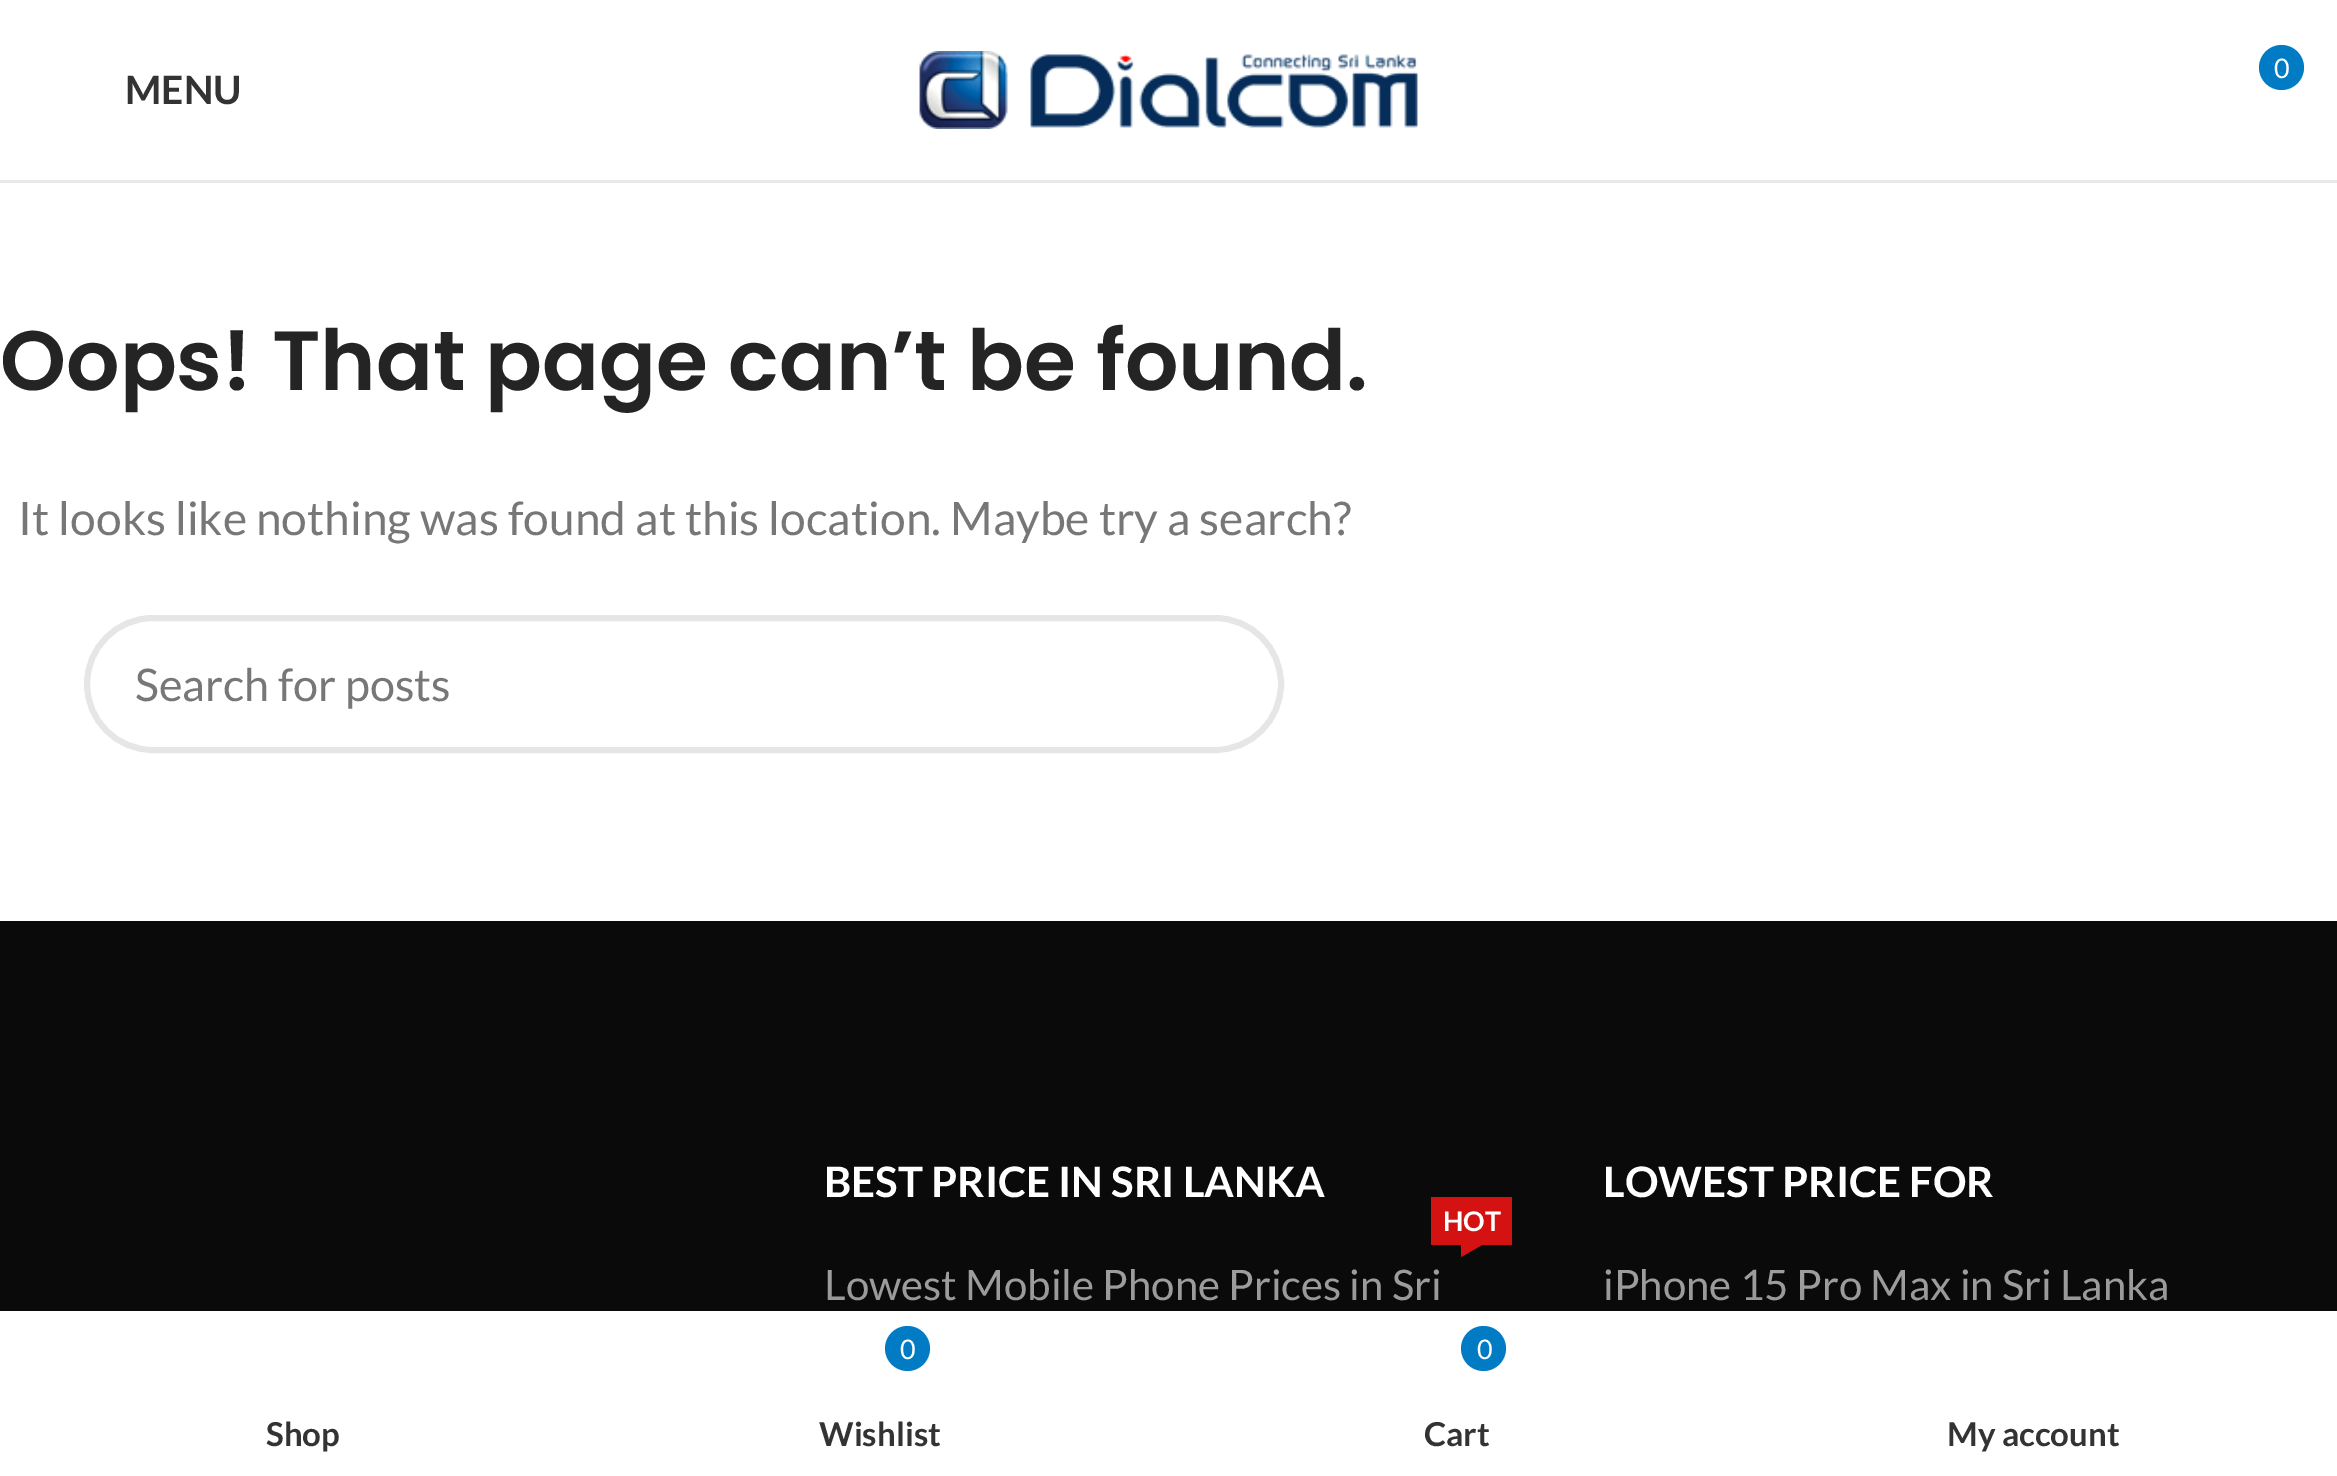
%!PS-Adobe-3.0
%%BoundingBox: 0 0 2337 1476
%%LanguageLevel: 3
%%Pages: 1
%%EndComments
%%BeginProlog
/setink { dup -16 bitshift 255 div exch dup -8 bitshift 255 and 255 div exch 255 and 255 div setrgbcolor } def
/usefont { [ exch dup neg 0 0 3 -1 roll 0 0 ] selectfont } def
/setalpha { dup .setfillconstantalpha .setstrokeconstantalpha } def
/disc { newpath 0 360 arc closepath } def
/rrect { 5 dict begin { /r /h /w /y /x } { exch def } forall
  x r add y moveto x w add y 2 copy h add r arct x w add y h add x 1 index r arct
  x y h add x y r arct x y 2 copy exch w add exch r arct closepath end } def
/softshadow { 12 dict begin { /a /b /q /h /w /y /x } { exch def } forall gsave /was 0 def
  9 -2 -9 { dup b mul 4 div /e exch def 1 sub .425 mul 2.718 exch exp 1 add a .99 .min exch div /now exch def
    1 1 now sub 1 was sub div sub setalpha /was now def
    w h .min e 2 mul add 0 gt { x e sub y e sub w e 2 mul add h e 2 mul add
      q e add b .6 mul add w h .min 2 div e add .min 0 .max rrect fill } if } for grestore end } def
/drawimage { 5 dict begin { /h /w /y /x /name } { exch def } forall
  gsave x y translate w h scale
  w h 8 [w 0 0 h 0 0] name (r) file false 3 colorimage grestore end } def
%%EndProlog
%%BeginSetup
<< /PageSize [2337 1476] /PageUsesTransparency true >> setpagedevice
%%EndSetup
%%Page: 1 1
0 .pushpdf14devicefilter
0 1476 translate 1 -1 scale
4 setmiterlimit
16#FFFFFF setink
0 0 2337 1476 rectfill
16#E8E8E8 setink
0 180 2337 3 rectfill
(img1.raw) 919 51 499 78 drawimage
16#007BC4 setink
2281.5 67.5 22.5 disc fill
/Lato-Regular 27 usefont
16#FFFFFF setink
2274 78 moveto (0) show
/Lato-Bold 39 usefont
16#333333 setink
125 104 moveto (MENU) show
/Poppins-SemiBold 84 usefont
16#242424 setink
0 390 moveto (Oops! That page can’t be found.) show
/Lato-Regular 46.2 usefont
16#777777 setink
18 535 moveto (It looks like nothing was found at this location. Maybe try a search?) show
16#E6E6E6 setink
6 setlinewidth
87 618 1194 132 66 rrect stroke
/Lato-Regular 45 usefont
16#777777 setink
135 701 moveto (Search for posts) show
16#0A0A0A setink
0 921 2337 390 rectfill
/Lato-Bold 42 usefont
16#FFFFFF setink
824 1197 moveto (BEST PRICE IN SRI LANKA) show
16#D41212 setink
1431 1197 81 48 rectfill
/Lato-Bold 27 usefont
16#FFFFFF setink
1443 1231 moveto (HOT) show
16#D41212 setink
1461 1245 moveto 1482 1245 lineto 1461 1257 lineto closepath fill
/Lato-Regular 42 usefont
16#9D9D9D setink
824 1300 moveto (Lowest Mobile Phone Prices in Sri) show
/Lato-Bold 42 usefont
16#FFFFFF setink
1603 1197 moveto (LOWEST PRICE FOR) show
/Lato-Regular 42 usefont
16#9D9D9D setink
1603 1300 moveto (iPhone 15 Pro Max in Sri Lanka) show
16#000000 setink
0 1311 2337 165 0 13.5 0.12 softshadow
16#FFFFFF setink
0 1311 2337 165 rectfill
/Lato-Bold 33 usefont
16#333333 setink
266 1446 moveto (Shop) show
16#007BC4 setink
907.5 1348.5 22.5 disc fill
/Lato-Regular 27 usefont
16#FFFFFF setink
900 1359 moveto (0) show
/Lato-Bold 33 usefont
16#333333 setink
819 1446 moveto (Wishlist) show
16#007BC4 setink
1483.5 1348.5 22.5 disc fill
/Lato-Regular 27 usefont
16#FFFFFF setink
1477 1359 moveto (0) show
/Lato-Bold 33 usefont
16#333333 setink
1424 1446 moveto (Cart) show
1947 1446 moveto (My account) show
.poppdf14devicefilter showpage
%%EOF
